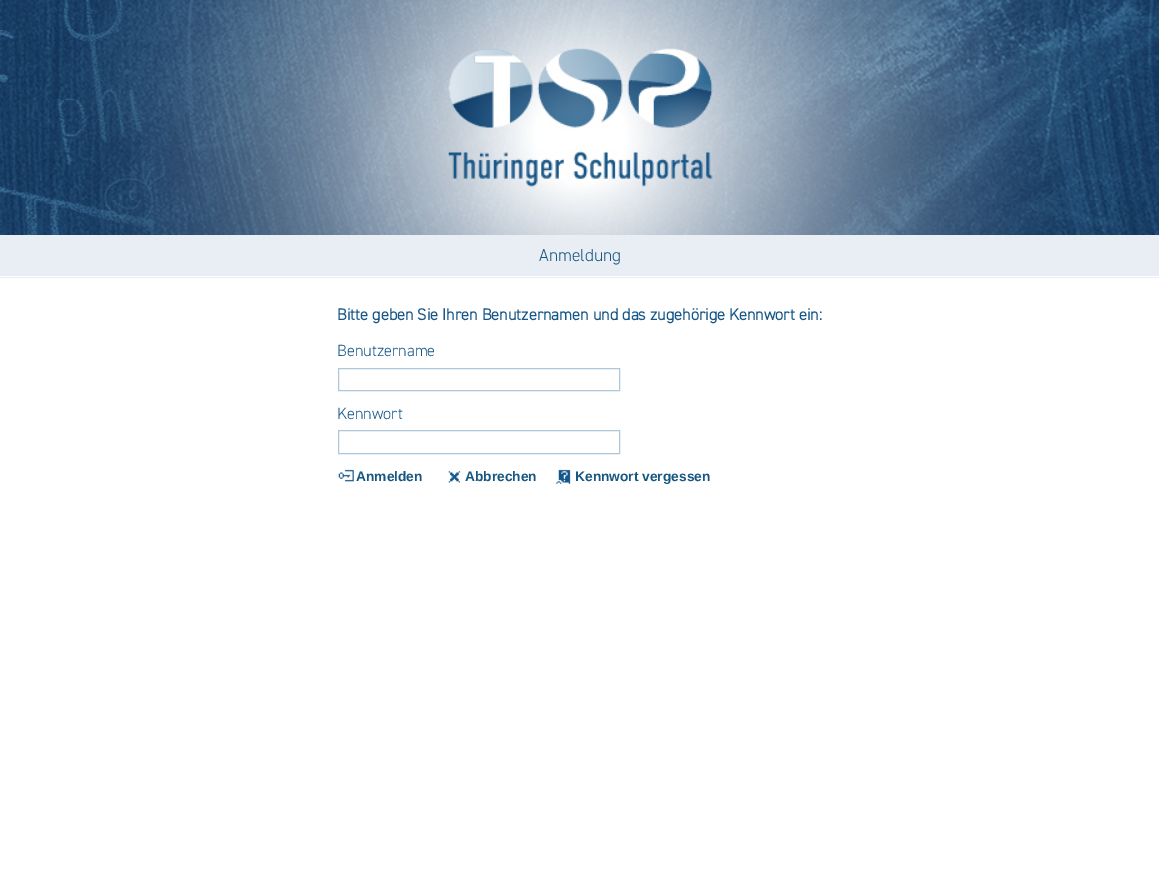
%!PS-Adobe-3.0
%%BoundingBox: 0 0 1159 885
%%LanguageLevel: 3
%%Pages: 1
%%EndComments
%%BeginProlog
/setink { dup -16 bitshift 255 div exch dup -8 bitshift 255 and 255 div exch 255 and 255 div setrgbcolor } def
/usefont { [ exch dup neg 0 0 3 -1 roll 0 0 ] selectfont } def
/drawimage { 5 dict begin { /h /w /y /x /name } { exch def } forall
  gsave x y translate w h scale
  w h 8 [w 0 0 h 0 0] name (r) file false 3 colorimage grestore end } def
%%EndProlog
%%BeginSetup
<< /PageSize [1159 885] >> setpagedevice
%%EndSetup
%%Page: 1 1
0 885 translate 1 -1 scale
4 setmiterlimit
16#FFFFFF setink
0 0 1159 885 rectfill
(img1.raw) 0 0 1159 235 drawimage
16#E8EEF3 setink
0 235 1159 43 rectfill
16#FFFFFF setink
0 276 1159 1 rectfill
/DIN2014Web-Light 17.5 usefont
16#175781 setink
539 261 moveto (Anmeldung) show
/DIN2014Web-Bold 16.25 usefont
16#185888 setink
337 320 moveto (Bitte geben Sie Ihren Benutzernamen und das zugehörige Kennwort ein:) show
/DIN2014Web-Light 16.25 usefont
337 356 moveto (Benutzername) show
16#AEC8DB setink
338.5 368.5 281 22 rectstroke
16#185888 setink
337 419 moveto (Kennwort) show
16#AEC8DB setink
338.5 430.5 281 23 rectstroke
(img2.raw) 338 469 16 13 drawimage
/LiberationSans-Bold 13.75 usefont
16#175781 setink
356 481 moveto (Anmelden) show
(img3.raw) 448 471 13 12 drawimage
465 481 moveto (Abbrechen) show
(img4.raw) 556 469 15 15 drawimage
575 481 moveto (Kennwort vergessen) show
showpage
%%EOF
